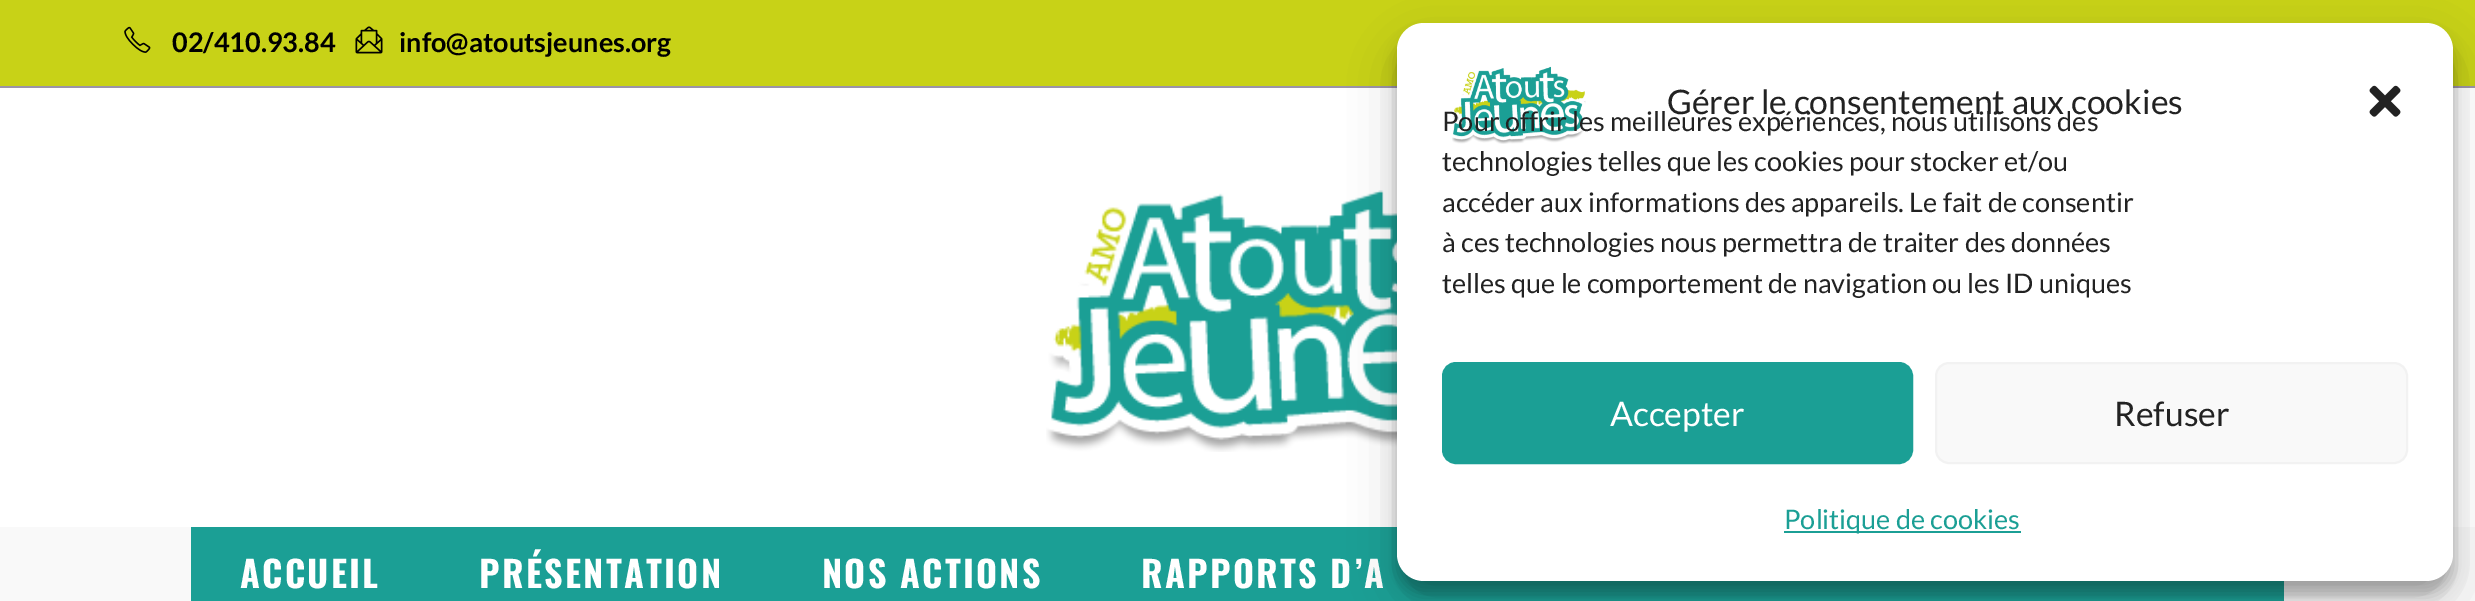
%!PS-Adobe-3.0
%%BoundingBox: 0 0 2475 601
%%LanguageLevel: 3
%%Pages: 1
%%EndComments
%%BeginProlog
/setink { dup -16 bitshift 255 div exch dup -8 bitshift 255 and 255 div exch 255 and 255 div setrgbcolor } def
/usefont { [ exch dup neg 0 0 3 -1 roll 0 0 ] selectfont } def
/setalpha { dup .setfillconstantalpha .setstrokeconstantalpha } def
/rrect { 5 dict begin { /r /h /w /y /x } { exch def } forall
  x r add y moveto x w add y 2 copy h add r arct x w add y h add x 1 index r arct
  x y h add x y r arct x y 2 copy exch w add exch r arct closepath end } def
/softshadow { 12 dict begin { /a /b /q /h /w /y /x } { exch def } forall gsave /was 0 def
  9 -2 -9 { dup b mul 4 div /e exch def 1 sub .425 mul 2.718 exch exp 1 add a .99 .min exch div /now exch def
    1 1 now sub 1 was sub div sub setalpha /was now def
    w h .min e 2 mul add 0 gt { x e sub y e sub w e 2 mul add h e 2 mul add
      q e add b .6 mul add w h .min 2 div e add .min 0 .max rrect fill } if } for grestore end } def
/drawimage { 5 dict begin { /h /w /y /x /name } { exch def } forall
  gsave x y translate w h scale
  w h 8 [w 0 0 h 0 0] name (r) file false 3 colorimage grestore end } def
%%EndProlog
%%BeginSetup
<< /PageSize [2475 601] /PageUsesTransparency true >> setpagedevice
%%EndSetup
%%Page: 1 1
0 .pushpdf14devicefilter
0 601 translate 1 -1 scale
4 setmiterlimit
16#FFFFFF setink
0 0 2475 601 rectfill
16#C8D217 setink
0 0 2475 86 rectfill
16#9B94A8 setink
0 86 2475 2 rectfill
(img1.raw) 124 26 27 27 drawimage
/Lato-Bold 27 usefont
16#000000 setink
172 52 moveto (02/410.93.84) show
(img2.raw) 355 26 28 28 drawimage
399 52 moveto (info@atoutsjeunes.org) show
(img3.raw) 1046 190 351 262 drawimage
16#F9F9F9 setink
0 527 2475 74 rectfill
16#1B9F95 setink
191 527 1391 74 rectfill
/Oswald-Bold 36 usefont
16#FFFFFF setink
240 588 moveto 2.25 0 (ACCUEIL) ashow
479 588 moveto 2.25 0 (PRÉSENTATION) ashow
822 588 moveto 2.25 0 (NOS ACTIONS) ashow
1141 588 moveto 2.25 0 (RAPPORTS D’A) ashow
16#1B9F95 setink
1582 581 702 20 rectfill
16#000000 setink
1397 36 1056 558 27 7 0.23 softshadow
1397 45 1056 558 27 22.5 0.19 softshadow
16#FFFFFF setink
1397 23 1056 558 27 rrect fill
(img4.raw) 1452 66 134 78 drawimage
/Lato-Regular 33.75 usefont
16#222222 setink
1667 114 moveto (Gérer le consentement aux cookies) show
(img5.raw) 2369 85 32 32 drawimage
/Lato-Regular 27 usefont
[
    [(Pour offrir les meilleures expériences, nous utilisons des) 1442 131]
    [(technologies telles que les cookies pour stocker et/ou) 1442 171]
    [(accéder aux informations des appareils. Le fait de consentir) 1442 212]
    [(à ces technologies nous permettra de traiter des données) 1442 252]
    [(telles que le comportement de navigation ou les ID uniques) 1442 293]
] { aload pop moveto show } forall
16#1B9F95 setink
1443 363 469 100 13 rrect gsave fill grestore
2 setlinewidth
stroke
/Lato-Regular 33.75 usefont
16#FFFFFF setink
1610 426 moveto (Accepter) show
16#F9F9F9 setink
1936 363 471 100 13 rrect gsave fill grestore
16#F2F2F2 setink
stroke
16#222222 setink
2114 426 moveto (Refuser) show
16#1B9F95 setink
1784 531 237 2 rectfill
/Lato-Regular 27 usefont
1784 529 moveto (Politique de cookies) show
.poppdf14devicefilter showpage
%%EOF
